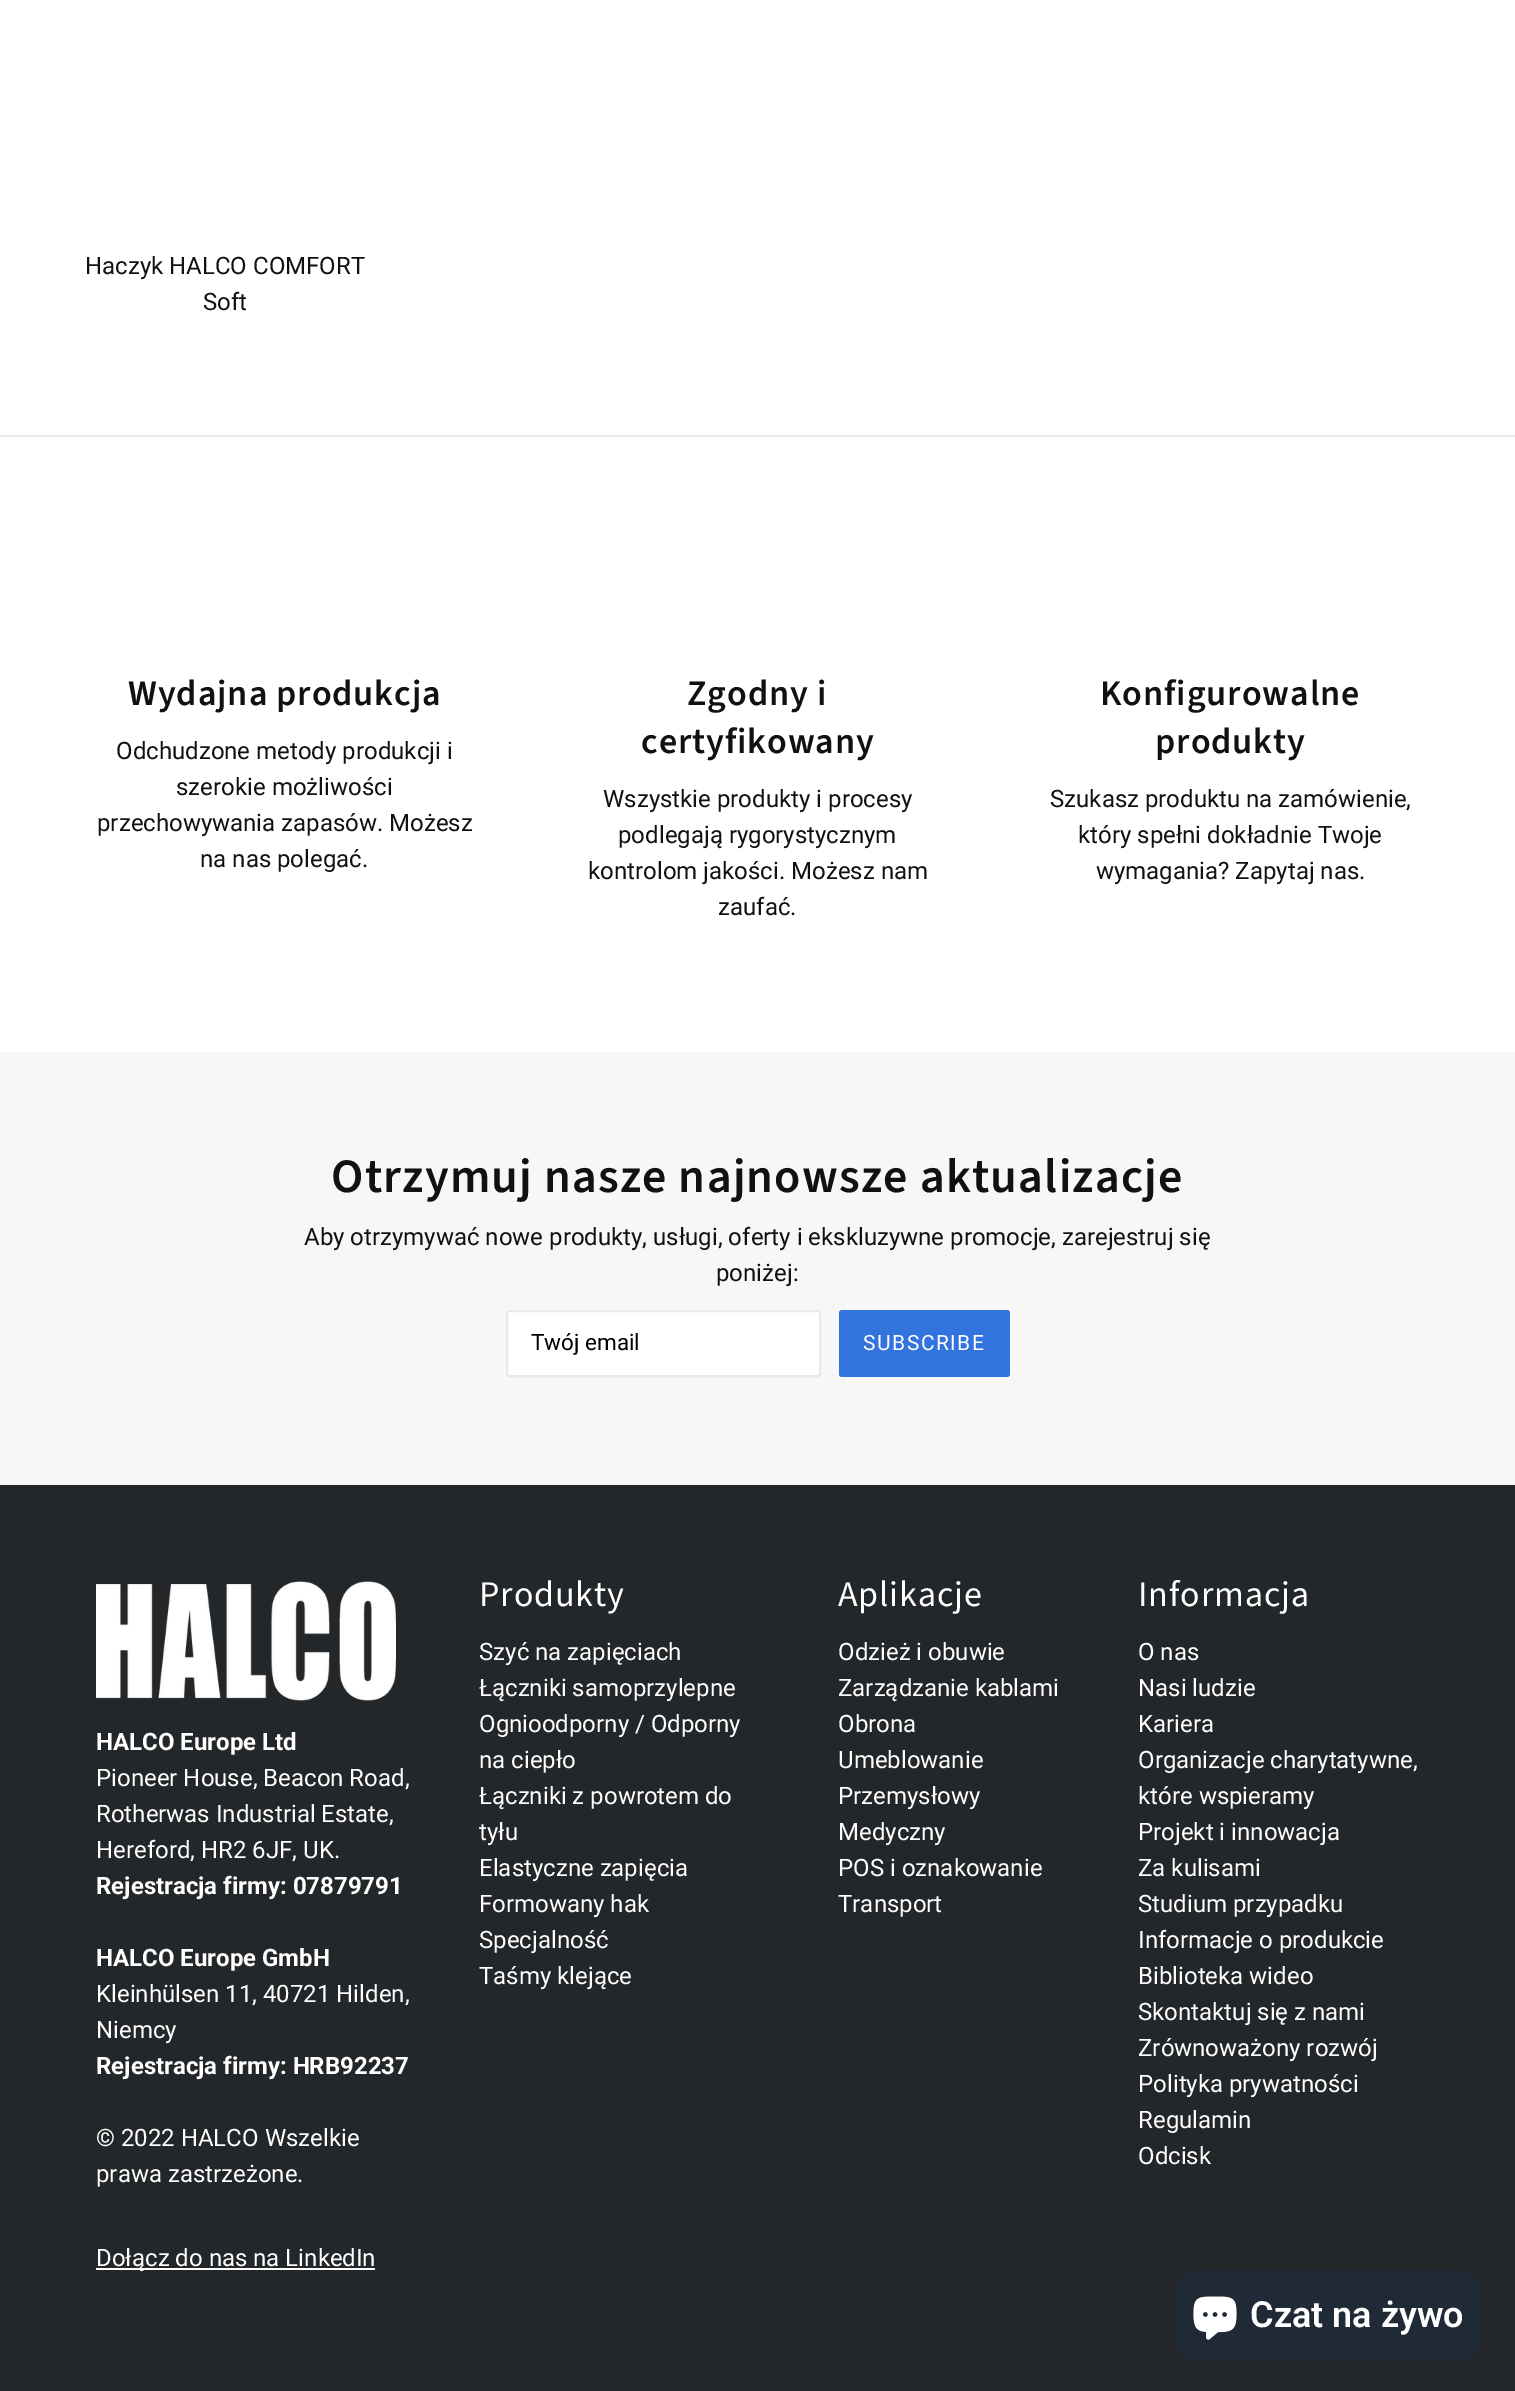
%!PS-Adobe-3.0
%%BoundingBox: 0 0 1515 2391
%%LanguageLevel: 3
%%Pages: 1
%%EndComments
%%BeginProlog
/setink { dup -16 bitshift 255 div exch dup -8 bitshift 255 and 255 div exch 255 and 255 div setrgbcolor } def
/usefont { [ exch dup neg 0 0 3 -1 roll 0 0 ] selectfont } def
/rrect { 5 dict begin { /r /h /w /y /x } { exch def } forall
  x r add y moveto x w add y 2 copy h add r arct x w add y h add x 1 index r arct
  x y h add x y r arct x y 2 copy exch w add exch r arct closepath end } def
/drawimage { 5 dict begin { /h /w /y /x /name } { exch def } forall
  gsave x y translate w h scale
  w h 8 [w 0 0 h 0 0] name (r) file false 3 colorimage grestore end } def
%%EndProlog
%%BeginSetup
<< /PageSize [1515 2391] >> setpagedevice
%%EndSetup
%%Page: 1 1
0 2391 translate 1 -1 scale
4 setmiterlimit
16#FFFFFF setink
0 0 1515 2391 rectfill
/Roboto-Regular 24 usefont
16#111111 setink
85 274 moveto (Haczyk HALCO COMFORT) show
203 310 moveto (Soft) show
16#EAEAEA setink
0 435 1515 2 rectfill
/SourceSansPro-SemiBold 36 usefont
16#111111 setink
128 705 moveto 0.9 0 (Wydajna produkcja) ashow
/Roboto-Regular 24 usefont
[
    [(Odchudzone metody produkcji i) 116 759]
    [(szerokie możliwości) 176 795]
    [(przechowywania zapasów. Możesz) 97 831]
    [(na nas polegać.) 200 867]
] { aload pop moveto show } forall
/SourceSansPro-SemiBold 36 usefont
687 705 moveto 0.9 0 (Zgodny i) ashow
641 753 moveto 0.9 0 (certyfikowany) ashow
/Roboto-Regular 24 usefont
[
    [(Wszystkie produkty i procesy) 603 807]
    [(podlegają rygorystycznym) 618 843]
    [(kontrolom jakości. Możesz nam) 588 879]
    [(zaufać.) 718 915]
] { aload pop moveto show } forall
/SourceSansPro-SemiBold 36 usefont
1100 705 moveto 0.9 0 (Konfigurowalne) ashow
1155 753 moveto 0.9 0 (produkty) ashow
/Roboto-Regular 24 usefont
[
    [(Szukasz produktu na zamówienie,) 1050 807]
    [(który spełni dokładnie Twoje) 1078 843]
    [(wymagania? Zapytaj nas.) 1096 879]
] { aload pop moveto show } forall
16#F7F7F7 setink
0 1052 1515 433 rectfill
/SourceSansPro-SemiBold 48 usefont
16#111111 setink
331 1192 moveto 1.2 0 (Otrzymuj nasze najnowsze aktualizacje) ashow
/Roboto-Regular 24 usefont
304 1245 moveto (Aby otrzymywać nowe produkty, usługi, oferty i ekskluzywne promocje, zarejestruj się) show
716 1281 moveto (poniżej:) show
16#FFFFFF setink
507 1311 313 65 2 rrect gsave fill grestore
16#EAEAEA setink
2 setlinewidth
stroke
/Roboto-Regular 22.5 usefont
16#000000 setink
531 1350 moveto (Twój email) show
16#3373DD setink
839 1310 171 67 3 rrect fill
/Roboto-Regular 21 usefont
16#FFFFFF setink
863 1350 moveto 1.5 0 (SUBSCRIBE) ashow
16#242729 setink
0 1485 1515 906 rectfill
(img1.raw) 96 1581 300 120 drawimage
/Roboto-Bold 24 usefont
16#FFFFFF setink
96 1750 moveto (HALCO Europe Ltd) show
/Roboto-Regular 24 usefont
[
    [(Pioneer House, Beacon Road,) 96 1786]
    [(Rotherwas Industrial Estate,) 96 1822]
    [(Hereford, HR2 6JF, UK.) 96 1858]
] { aload pop moveto show } forall
/Roboto-Bold 24 usefont
96 1894 moveto (Rejestracja firmy: 07879791) show
96 1966 moveto (HALCO Europe GmbH) show
/Roboto-Regular 24 usefont
96 2002 moveto (Kleinhülsen 11, 40721 Hilden,) show
96 2038 moveto (Niemcy) show
/Roboto-Bold 24 usefont
96 2074 moveto (Rejestracja firmy: HRB92237) show
/Roboto-Regular 24 usefont
96 2146 moveto (© 2022 HALCO Wszelkie) show
96 2182 moveto (prawa zastrzeżone.) show
96 2268 279 2 rectfill
96 2266 moveto (Dołącz do nas na LinkedIn) show
/SourceSansPro-Regular 36 usefont
479 1606 moveto 0.9 0 (Produkty) ashow
/Roboto-Regular 24 usefont
[
    [(Szyć na zapięciach) 479 1660]
    [(Łączniki samoprzylepne) 479 1696]
    [(Ognioodporny / Odporny) 479 1732]
    [(na ciepło) 479 1768]
    [(Łączniki z powrotem do) 479 1804]
    [(tyłu) 479 1840]
    [(Elastyczne zapięcia) 479 1876]
    [(Formowany hak) 479 1912]
    [(Specjalność) 479 1948]
    [(Taśmy klejące) 479 1984]
] { aload pop moveto show } forall
/SourceSansPro-Regular 36 usefont
838 1606 moveto 0.9 0 (Aplikacje) ashow
/Roboto-Regular 24 usefont
[
    [(Odzież i obuwie) 838 1660]
    [(Zarządzanie kablami) 838 1696]
    [(Obrona) 838 1732]
    [(Umeblowanie) 838 1768]
    [(Przemysłowy) 838 1804]
    [(Medyczny) 838 1840]
    [(POS i oznakowanie) 838 1876]
    [(Transport) 838 1912]
] { aload pop moveto show } forall
/SourceSansPro-Regular 36 usefont
1138 1606 moveto 0.9 0 (Informacja) ashow
/Roboto-Regular 24 usefont
[
    [(O nas) 1138 1660]
    [(Nasi ludzie) 1138 1696]
    [(Kariera) 1138 1732]
    [(Organizacje charytatywne,) 1138 1768]
    [(które wspieramy) 1138 1804]
    [(Projekt i innowacja) 1138 1840]
    [(Za kulisami) 1138 1876]
    [(Studium przypadku) 1138 1912]
    [(Informacje o produkcie) 1138 1948]
    [(Biblioteka wideo) 1138 1984]
    [(Skontaktuj się z nami) 1138 2020]
    [(Zrównoważony rozwój) 1138 2056]
    [(Polityka prywatności) 1138 2092]
    [(Regulamin) 1138 2128]
    [(Odcisk) 1138 2164]
] { aload pop moveto show } forall
16#202A36 setink
1175 2270 307 90 24 rrect fill
(img2.raw) 1193 2296 44 44 drawimage
/Roboto-SemiBold 36 usefont
16#FFFFFF setink
1250 2327 moveto (Czat na żywo) show
showpage
%%EOF
